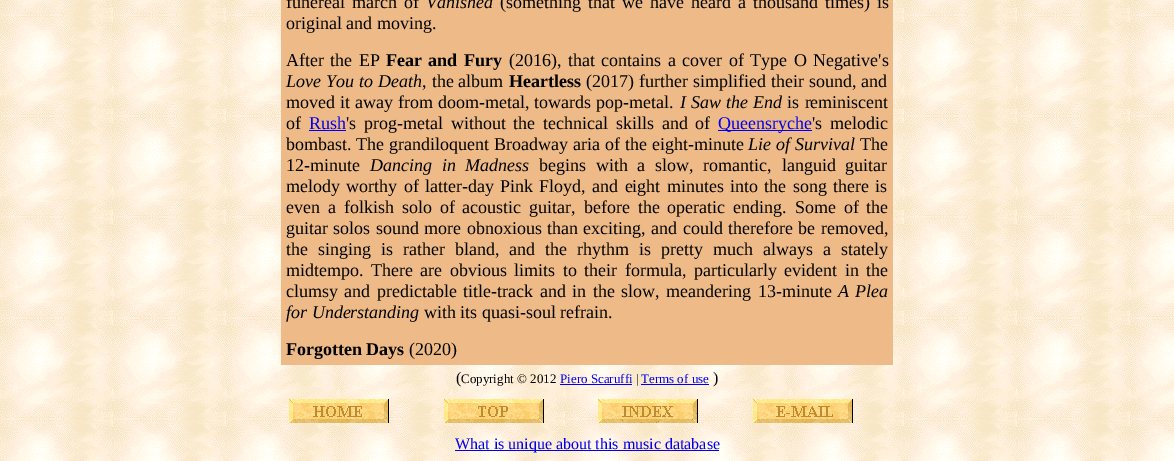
%!PS-Adobe-3.0
%%BoundingBox: 0 0 1174 461
%%LanguageLevel: 3
%%Pages: 1
%%EndComments
%%BeginProlog
/setink { dup -16 bitshift 255 div exch dup -8 bitshift 255 and 255 div exch 255 and 255 div setrgbcolor } def
/usefont { [ exch dup neg 0 0 3 -1 roll 0 0 ] selectfont } def
/drawimage { 5 dict begin { /h /w /y /x /name } { exch def } forall
  gsave x y translate w h scale
  w h 8 [w 0 0 h 0 0] name (r) file false 3 colorimage grestore end } def
%%EndProlog
%%BeginSetup
<< /PageSize [1174 461] >> setpagedevice
%%EndSetup
%%Page: 1 1
0 461 translate 1 -1 scale
4 setmiterlimit
16#FFFFFF setink
0 0 1174 461 rectfill
(img1.raw) 0 0 1174 461 drawimage
16#EEBB88 setink
281 0 612 365 rectfill
/LiberationSerif-Regular 18 usefont
16#000000 setink
286 8 moveto 2.5 0 32 (funereal march of) widthshow
/LiberationSerif-Italic 18 usefont
426 8 moveto (Vanished) show
/LiberationSerif-Regular 18 usefont
500 8 moveto 2.5 0 32 (\(something that we have heard a thousand times\) is) widthshow
286 29 moveto (original and moving.) show
286 66 moveto 2 0 32 (After the EP) widthshow
/LiberationSerif-Bold 18 usefont
386 66 moveto 2 0 32 (Fear and Fury) widthshow
/LiberationSerif-Regular 18 usefont
509 66 moveto 2 0 32 (\(2016\), that contains a cover of Type O Negative's) widthshow
/LiberationSerif-Italic 18 usefont
286 87 moveto 0.5 0 32 (Love You to Death) widthshow
/LiberationSerif-Regular 18 usefont
422 87 moveto 0.5 0 32 (, the album) widthshow
/LiberationSerif-Bold 18 usefont
509 87 moveto (Heartless) show
/LiberationSerif-Regular 18 usefont
586 87 moveto 0.5 0 32 (\(2017\) further simplified their sound, and) widthshow
286 108 moveto 0.5 0 32 (moved it away from doom-metal, towards pop-metal.) widthshow
/LiberationSerif-Italic 18 usefont
680 108 moveto 0.5 0 32 (I Saw the End) widthshow
/LiberationSerif-Regular 18 usefont
787 108 moveto 1 0 32 (is reminiscent) widthshow
286 129 moveto (of) show
16#0000EE setink
309 129 moveto (Rush) show
16#000000 setink
346 129 moveto 3.25 0 32 ('s prog-metal without the technical skills and of) widthshow
16#0000EE setink
309 130 37 1 rectfill
718 130 94 1 rectfill
718 129 moveto (Queensryche) show
16#000000 setink
812 129 moveto 3.25 0 32 ('s melodic) widthshow
286 150 moveto 0.5 0 32 (bombast. The grandiloquent Broadway aria of the eight-minute) widthshow
/LiberationSerif-Italic 18 usefont
748 150 moveto 0.5 0 32 (Lie of Survival) widthshow
/LiberationSerif-Regular 18 usefont
860 150 moveto (The) show
286 171 moveto (12-minute) show
/LiberationSerif-Italic 18 usefont
370 171 moveto 5.25 0 32 (Dancing in Madness) widthshow
/LiberationSerif-Regular 18 usefont
539 171 moveto 5.25 0 32 (begins with a slow, romantic, languid guitar) widthshow
286 192 moveto 1.8 0 32 (melody worthy of latter-day Pink Floyd, and eight minutes into the song there is) widthshow
286 213 moveto 3.4 0 32 (even a folkish solo of acoustic guitar, before the operatic ending. Some of the) widthshow
286 234 moveto 0.9 0 32 (guitar solos sound more obnoxious than exciting, and could therefore be removed,) widthshow
286 255 moveto 5.5 0 32 (the singing is rather bland, and the rhythm is pretty much always a stately) widthshow
286 276 moveto 3 0 32 (midtempo. There are obvious limits to their formula, particularly evident in the) widthshow
286 297 moveto 2 0 32 (clumsy and predictable title-track and in the slow, meandering 13-minute) widthshow
/LiberationSerif-Italic 18 usefont
838 297 moveto 2 0 32 (A Plea) widthshow
286 318 moveto (for Understanding) show
/LiberationSerif-Regular 18 usefont
424 318 moveto (with its quasi-soul refrain.) show
/LiberationSerif-Bold 18 usefont
286 355 moveto (Forgotten Days) show
/LiberationSerif-Regular 18 usefont
409 355 moveto (\(2020\)) show
/LiberationSerif-Regular 16 usefont
456 383 moveto (\() show
/LiberationSerif-Regular 13 usefont
461 383 moveto (Copyright © 2012) show
16#0000EE setink
560 383 moveto (Piero Scaruffi) show
560 384 72 1 rectfill
16#000000 setink
636 383 moveto (|) show
16#0000EE setink
641 383 moveto (Terms of use) show
641 384 68 1 rectfill
/LiberationSerif-Regular 16 usefont
16#000000 setink
713 383 moveto (\)) show
(img2.raw) 289 399 100 24 drawimage
(img3.raw) 444 399 100 24 drawimage
(img4.raw) 598 399 100 24 drawimage
(img5.raw) 753 399 100 24 drawimage
16#0000EE setink
455 450 264 1 rectfill
455 449 moveto (What is unique about this music database) show
showpage
%%EOF
